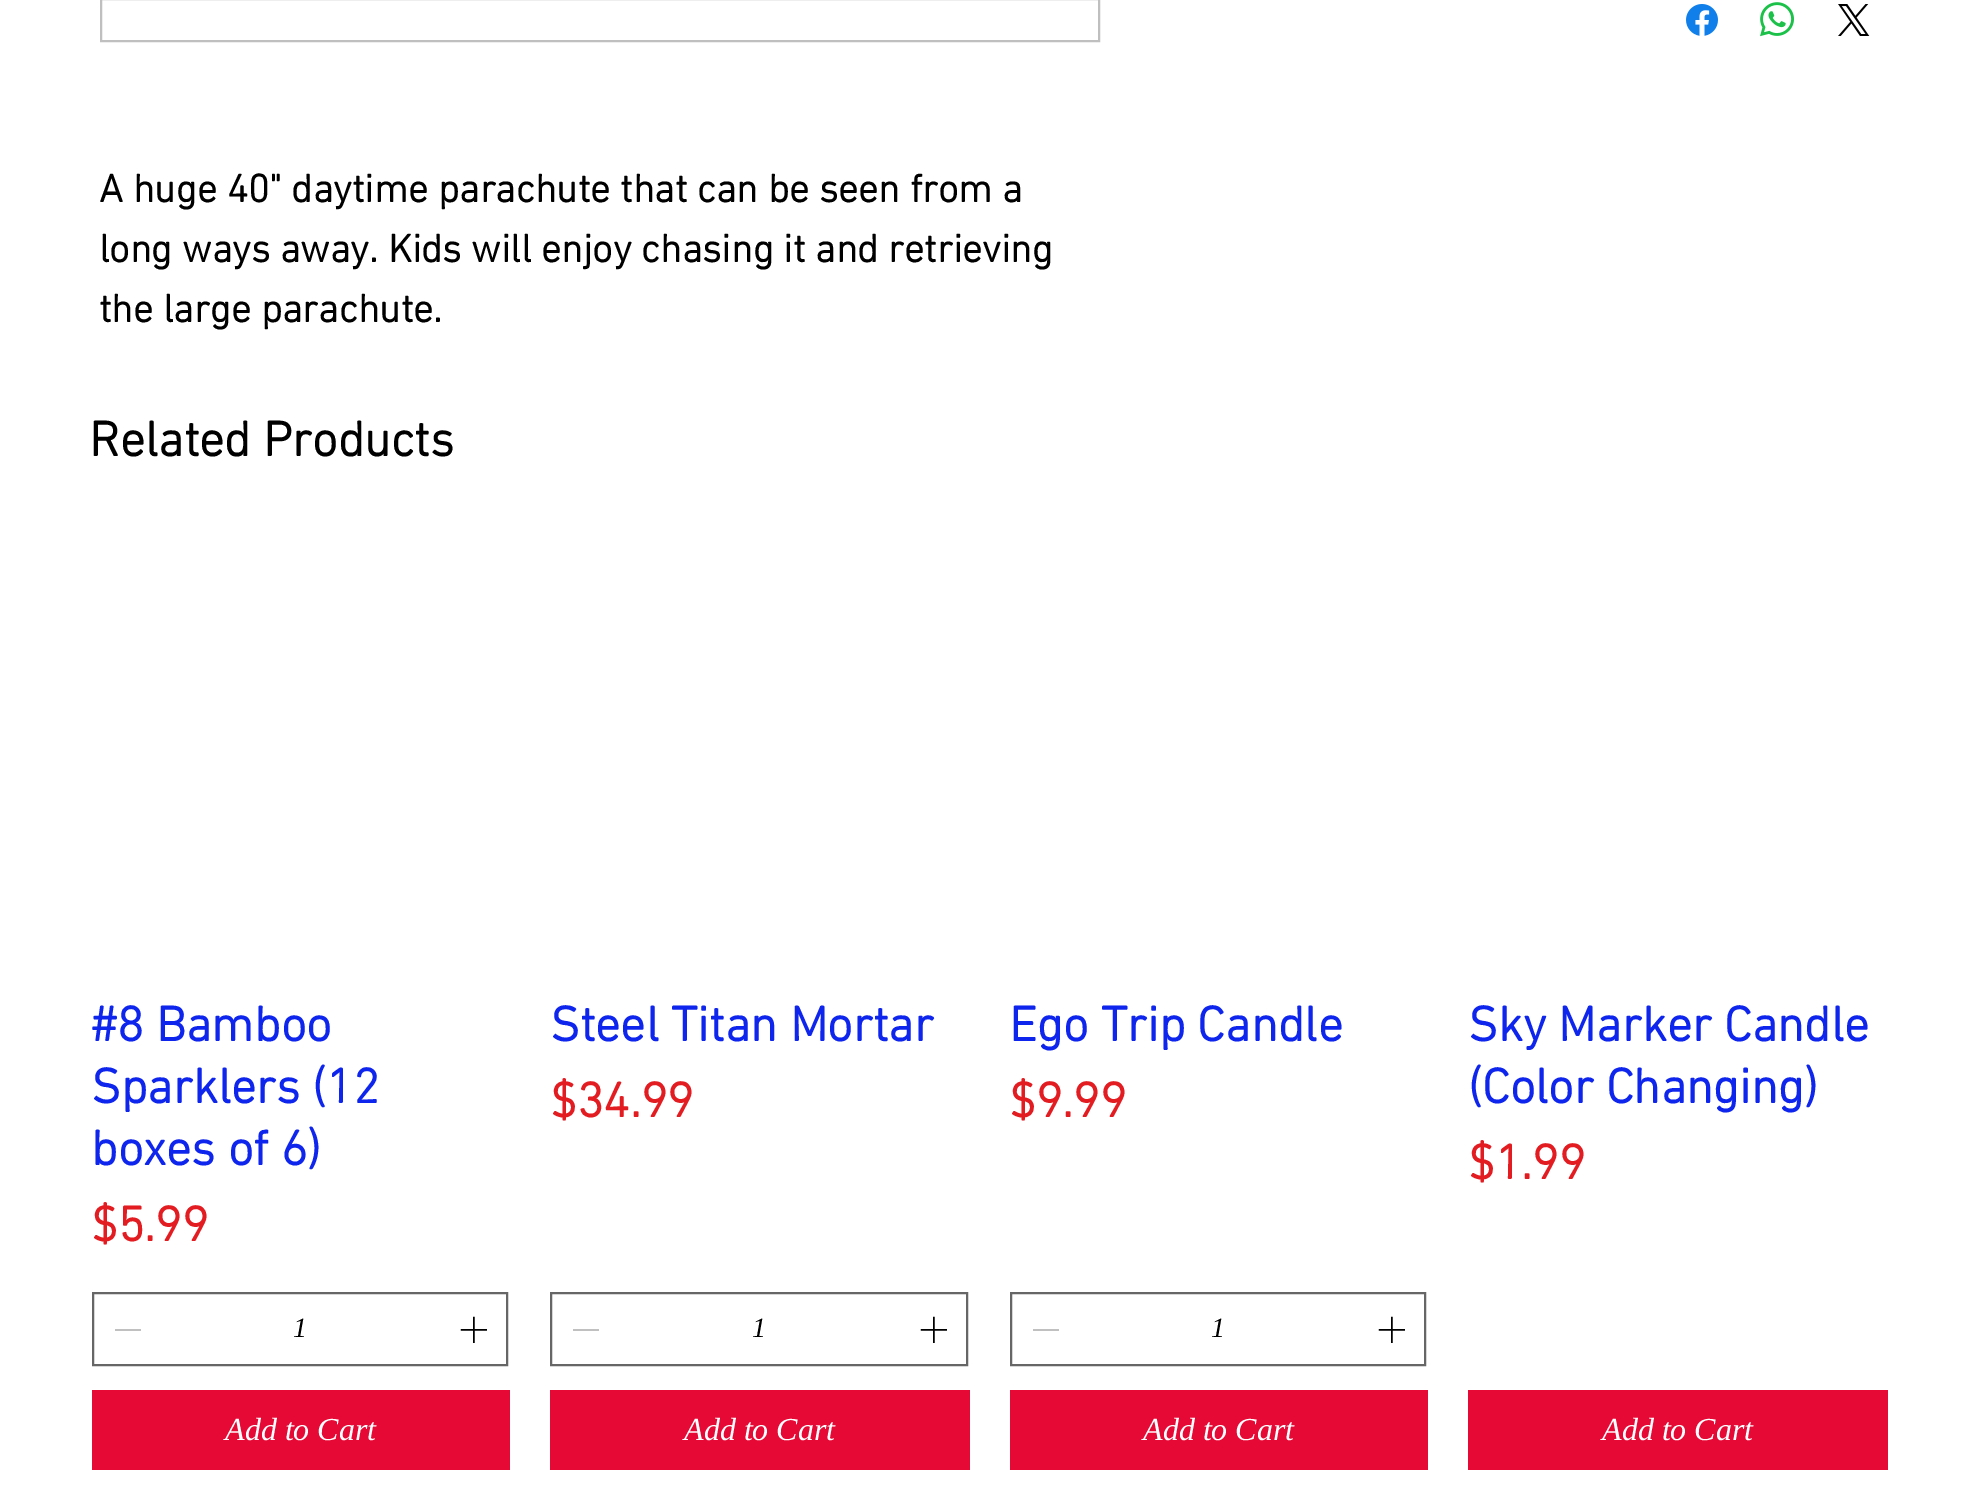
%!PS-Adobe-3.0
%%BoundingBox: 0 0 1978 1505
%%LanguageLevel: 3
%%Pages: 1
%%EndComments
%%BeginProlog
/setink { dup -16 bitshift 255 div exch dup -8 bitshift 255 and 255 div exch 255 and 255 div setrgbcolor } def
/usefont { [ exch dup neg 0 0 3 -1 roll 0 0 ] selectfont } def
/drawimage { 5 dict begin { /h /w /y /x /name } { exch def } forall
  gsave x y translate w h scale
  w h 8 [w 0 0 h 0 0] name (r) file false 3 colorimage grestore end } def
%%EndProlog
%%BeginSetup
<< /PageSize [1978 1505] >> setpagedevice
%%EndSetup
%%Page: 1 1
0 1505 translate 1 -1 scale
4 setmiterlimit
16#FFFFFF setink
0 0 1978 1505 rectfill
(img1.raw) 1686 4 32 32 drawimage
(img2.raw) 1760 2 34 35 drawimage
(img3.raw) 1838 4 32 32 drawimage
16#BFBFBF setink
2 setlinewidth
101 -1 998 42 rectstroke
/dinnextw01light-Bold 40 usefont
16#000000 setink
[
    [(A huge 40" daytime parachute that can be seen from a) 99 202]
    [(long ways away. Kids will enjoy chasing it and retrieving) 99 262]
    [(the large parachute.) 99 322]
] { aload pop moveto show } forall
/dinnextw01light-Bold 50 usefont
89 456 moveto (Related Products) show
16#0E25ED setink
[
    [(#8 Bamboo) 91 1041]
    [(Sparklers \(12) 91 1103]
    [(boxes of 6\)) 91 1165]
] { aload pop moveto show } forall
16#E21C21 setink
91 1241 moveto ($5.99) show
16#666666 setink
93 1293 414 72 rectstroke
16#C0C0C0 setink
115 1329 26 2 rectfill
/LiberationSerif-Italic 28 usefont
16#000000 setink
293 1337 moveto (1) show
(img4.raw) 460 1316 27 27 drawimage
16#E60935 setink
92 1390 418 80 rectfill
/LiberationSerif-Italic 32 usefont
16#FFFFFF setink
225 1440 moveto (Add to Cart) show
/dinnextw01light-Bold 50 usefont
16#0E25ED setink
550 1041 moveto (Steel Titan Mortar) show
16#E21C21 setink
550 1117 moveto ($34.99) show
16#666666 setink
551 1293 416 72 rectstroke
16#C0C0C0 setink
573 1329 26 2 rectfill
/LiberationSerif-Italic 28 usefont
16#000000 setink
752 1337 moveto (1) show
(img4.raw) 920 1316 27 27 drawimage
16#E60935 setink
550 1390 420 80 rectfill
/LiberationSerif-Italic 32 usefont
16#FFFFFF setink
684 1440 moveto (Add to Cart) show
/dinnextw01light-Bold 50 usefont
16#0E25ED setink
1009 1041 moveto (Ego Trip Candle) show
16#E21C21 setink
1009 1117 moveto ($9.99) show
16#666666 setink
1011 1293 414 72 rectstroke
16#C0C0C0 setink
1033 1329 26 2 rectfill
/LiberationSerif-Italic 28 usefont
16#000000 setink
1211 1337 moveto (1) show
(img4.raw) 1378 1316 27 27 drawimage
16#E60935 setink
1010 1390 418 80 rectfill
/LiberationSerif-Italic 32 usefont
16#FFFFFF setink
1143 1440 moveto (Add to Cart) show
/dinnextw01light-Bold 50 usefont
16#0E25ED setink
1468 1041 moveto (Sky Marker Candle) show
1468 1103 moveto (\(Color Changing\)) show
16#E21C21 setink
1468 1179 moveto ($1.99) show
16#E60935 setink
1468 1390 420 80 rectfill
/LiberationSerif-Italic 32 usefont
16#FFFFFF setink
1602 1440 moveto (Add to Cart) show
showpage
%%EOF
